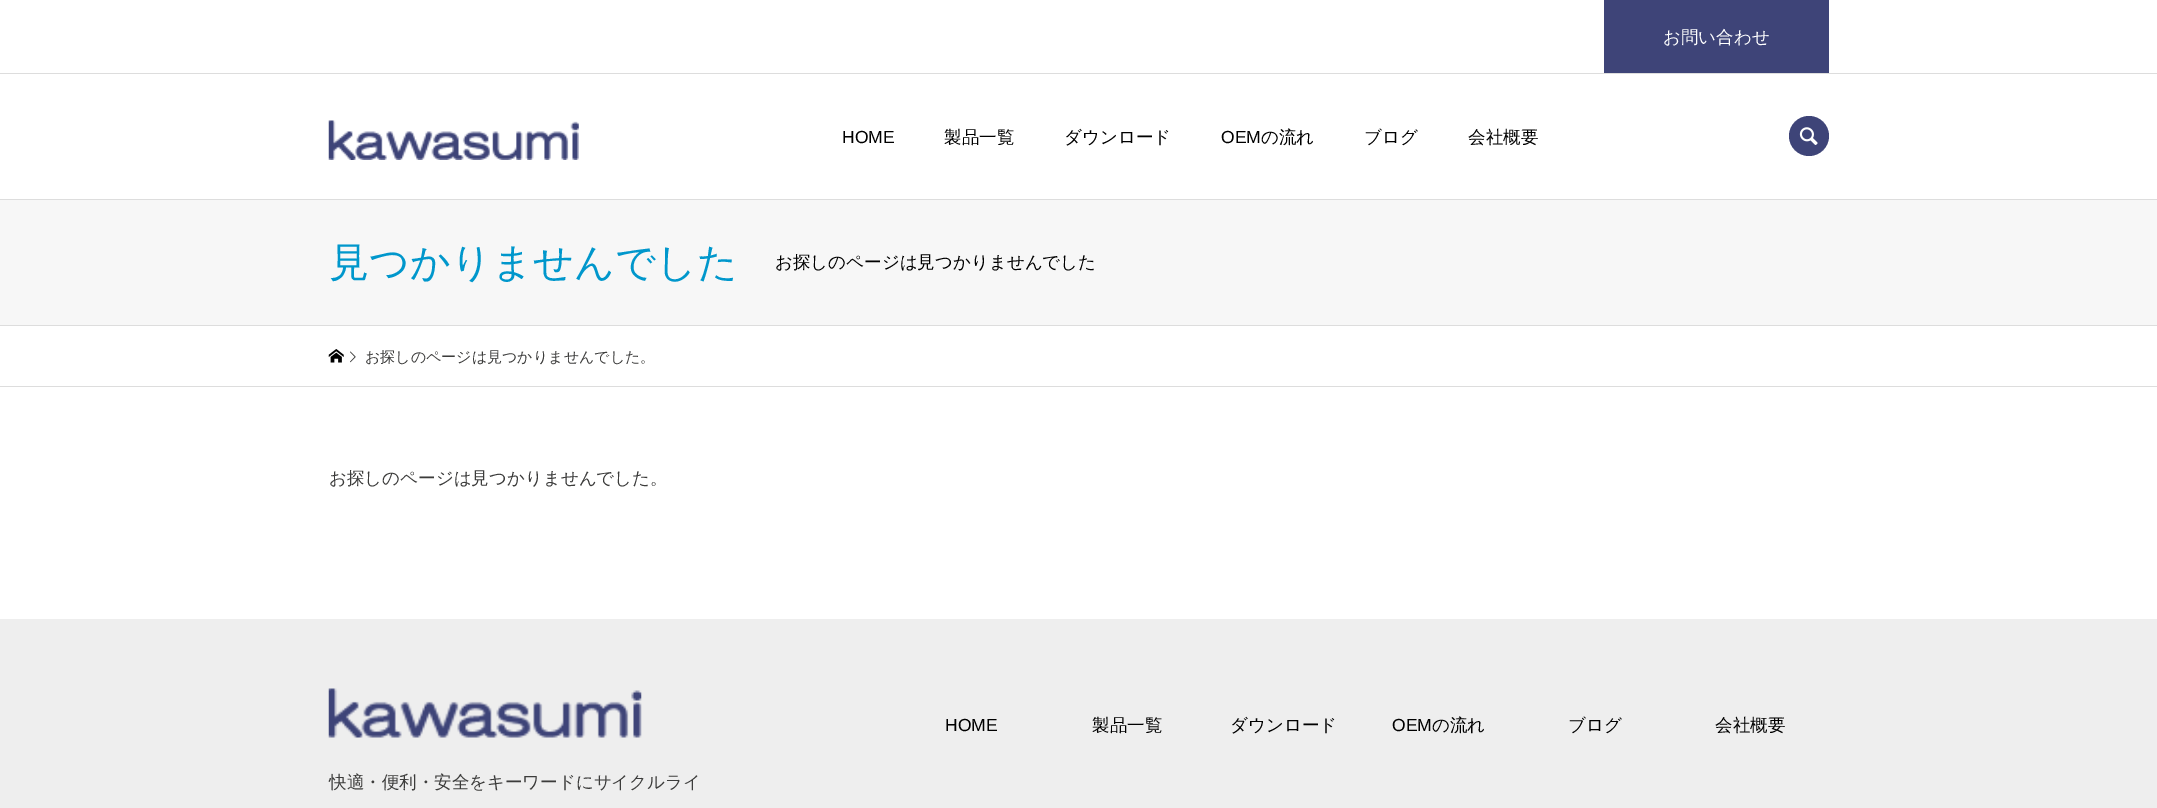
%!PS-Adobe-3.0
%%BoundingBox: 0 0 2157 808
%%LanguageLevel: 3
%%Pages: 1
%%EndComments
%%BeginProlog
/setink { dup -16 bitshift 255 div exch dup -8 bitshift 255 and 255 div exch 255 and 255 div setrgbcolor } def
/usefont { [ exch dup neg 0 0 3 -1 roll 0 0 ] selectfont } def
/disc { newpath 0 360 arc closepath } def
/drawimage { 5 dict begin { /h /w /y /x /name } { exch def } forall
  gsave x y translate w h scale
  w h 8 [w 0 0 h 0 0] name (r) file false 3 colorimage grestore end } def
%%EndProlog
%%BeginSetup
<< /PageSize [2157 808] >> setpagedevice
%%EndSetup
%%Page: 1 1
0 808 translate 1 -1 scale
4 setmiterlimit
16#FFFFFF setink
0 0 2157 808 rectfill
16#DDDDDD setink
0 73 2157 1 rectfill
16#3E4478 setink
1604 0 225 73 rectfill
/WenQuanYiZenHei-Medium 17.5 usefont
16#FFFFFF setink
1663 43 moveto (お問い合わせ) show
16#DDDDDD setink
0 199 2157 1 rectfill
(img1.raw) 328 120 251 40 drawimage
/LiberationSans-Regular 17.5 usefont
16#000000 setink
842 143 moveto (HOME) show
/WenQuanYiZenHei-Medium 17.5 usefont
944 143 moveto (製品一覧) show
1064 143 moveto (ダウンロード) show
/LiberationSans-Regular 17.5 usefont
1221 143 moveto (OEM) show
/WenQuanYiZenHei-Medium 17.5 usefont
[
    [(の流れ) 1261 143]
    [(ブログ) 1364 143]
    [(会社概要) 1468 143]
] { aload pop moveto show } forall
16#3E4478 setink
1809 136 20 disc fill
(img2.raw) 1799 127 19 18 drawimage
16#F7F7F7 setink
0 200 2157 125 rectfill
16#DDDDDD setink
0 325 2157 1 rectfill
/WenQuanYiZenHei-Medium 40 usefont
16#0097CC setink
329 276 moveto (見つかりませんでした) show
/WenQuanYiZenHei-Medium 17.5 usefont
16#000000 setink
775 268 moveto (お探しのページは見つかりませんでした) show
16#DDDDDD setink
0 386 2157 1 rectfill
(img3.raw) 328 349 16 14 drawimage
(img4.raw) 350 351 6 12 drawimage
/WenQuanYiZenHei-Medium 15 usefont
16#3C3C3B setink
365 362 moveto (お探しのページは見つかりませんでした。) show
/WenQuanYiZenHei-Medium 17.5 usefont
329 484 moveto (お探しのページは見つかりませんでした。) show
16#EEEEEE setink
0 619 2157 189 rectfill
/LiberationSans-Regular 17.5 usefont
16#000000 setink
945 731 moveto (HOME) show
/WenQuanYiZenHei-Medium 17.5 usefont
1092 731 moveto (製品一覧) show
1230 731 moveto (ダウンロード) show
/LiberationSans-Regular 17.5 usefont
1392 731 moveto (OEM) show
/WenQuanYiZenHei-Medium 17.5 usefont
[
    [(の流れ) 1432 731]
    [(ブログ) 1568 731]
    [(会社概要) 1715 731]
] { aload pop moveto show } forall
(img5.raw) 328 688 314 50 drawimage
16#3C3C3B setink
329 788 moveto (快適・便利・安全をキーワードにサイクルライ) show
showpage
%%EOF
